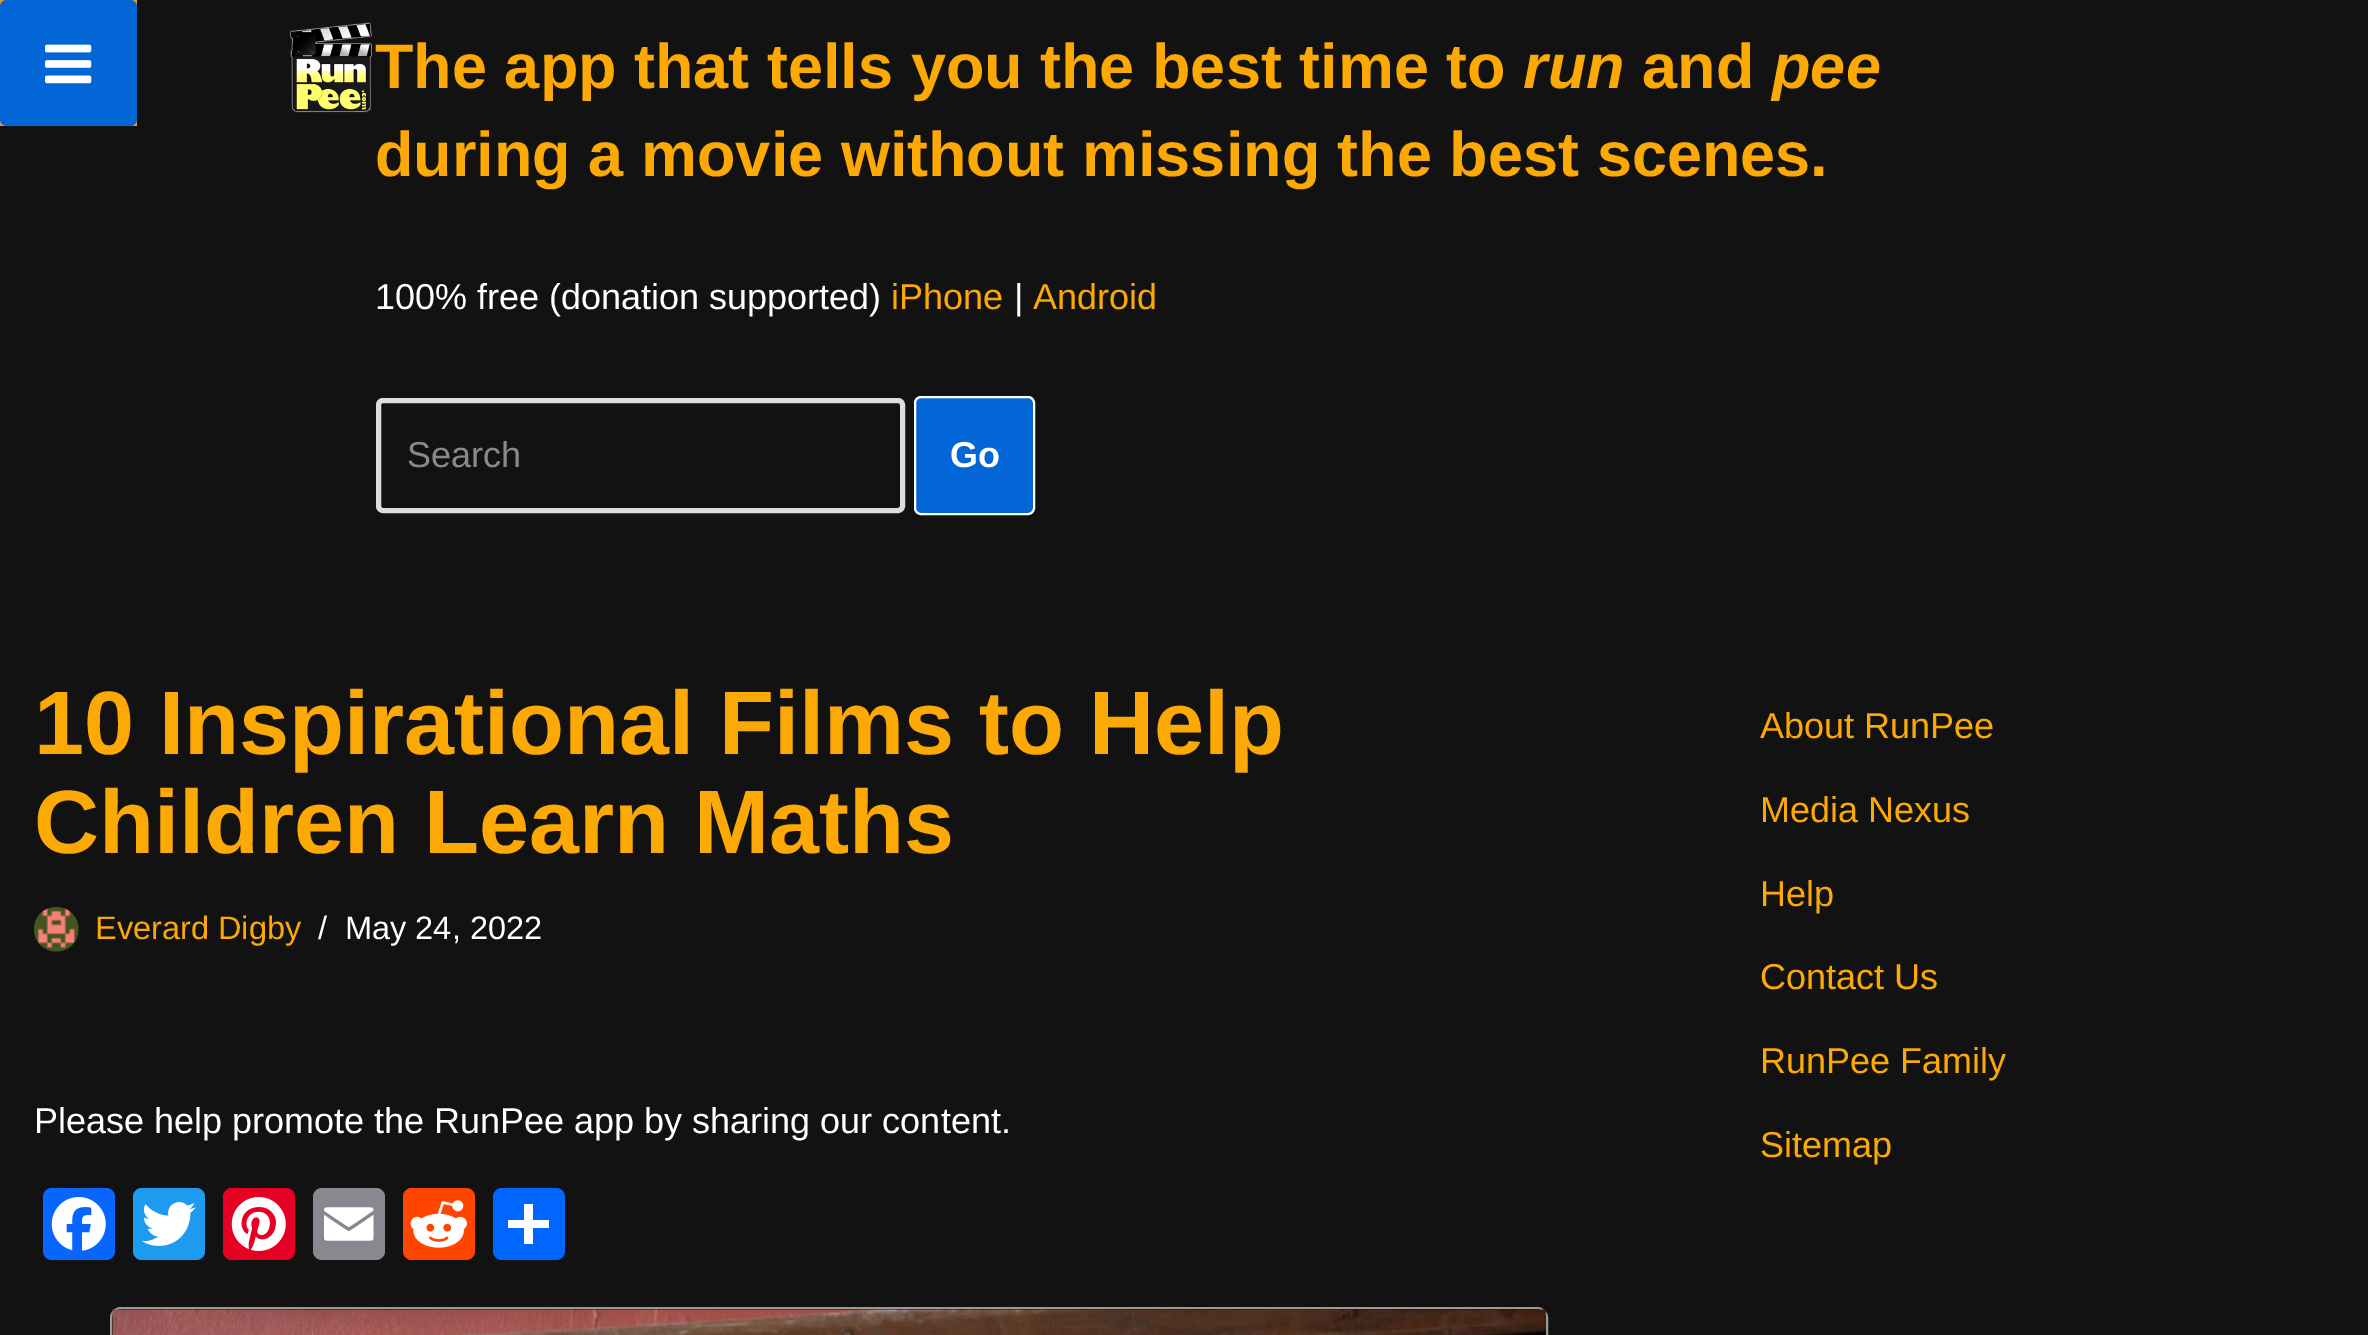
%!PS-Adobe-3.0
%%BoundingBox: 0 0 2368 1335
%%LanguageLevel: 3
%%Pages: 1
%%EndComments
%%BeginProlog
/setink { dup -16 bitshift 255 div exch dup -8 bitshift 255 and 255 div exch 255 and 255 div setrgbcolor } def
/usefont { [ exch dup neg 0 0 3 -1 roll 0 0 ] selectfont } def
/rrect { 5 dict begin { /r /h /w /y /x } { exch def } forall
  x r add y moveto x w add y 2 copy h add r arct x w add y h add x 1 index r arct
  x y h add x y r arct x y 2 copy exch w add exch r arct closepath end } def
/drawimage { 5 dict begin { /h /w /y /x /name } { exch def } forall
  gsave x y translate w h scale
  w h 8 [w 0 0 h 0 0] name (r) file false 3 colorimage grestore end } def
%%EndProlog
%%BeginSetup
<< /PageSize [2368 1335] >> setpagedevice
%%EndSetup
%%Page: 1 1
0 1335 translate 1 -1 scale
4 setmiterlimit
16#121212 setink
0 0 2368 1335 rectfill
16#DD9933 setink
0 0 137 126 rectfill
16#0366D6 setink
0 0 137 126 7 rrect fill
(img1.raw) 45 44 47 40 drawimage
(img2.raw) 289 22 83 91 drawimage
/LiberationSans-Bold 63 usefont
16#FCA905 setink
375 88 moveto (The app that tells you the best time to) show
/LiberationSans-BoldItalic 63 usefont
1523 88 moveto (run) show
/LiberationSans-Bold 63 usefont
1642 88 moveto (and) show
/LiberationSans-BoldItalic 63 usefont
1772 88 moveto (pee) show
/LiberationSans-Bold 63 usefont
375 176 moveto (during a movie without missing the best scenes.) show
/LiberationSans-Regular 36 usefont
16#FFFFFF setink
375 309 moveto (100% free \(donation supported\)) show
16#FCA905 setink
891 309 moveto (iPhone) show
16#FFFFFF setink
1014 309 moveto (|) show
16#FCA905 setink
1033 309 moveto (Android) show
16#DDDDDD setink
5 setlinewidth
378.5 400.5 524 110 4.5 rrect stroke
16#898989 setink
407 467 moveto (Search) show
16#0366D6 setink
915 397 119 117 6 rrect gsave fill grestore
16#FFFFFF setink
2 setlinewidth
stroke
/LiberationSans-Bold 36 usefont
950 467 moveto (Go) show
/LiberationSans-Bold 90 usefont
16#FCA905 setink
34 754 moveto (10 Inspirational Films to Help) show
34 853 moveto (Children Learn Maths) show
(img3.raw) 33 907 46 45 drawimage
/LiberationSans-Regular 32.5 usefont
95 939 moveto (Everard Digby) show
16#FFFFFF setink
318 939 moveto (/) show
345 939 moveto (May 24, 2022) show
/LiberationSans-Regular 36 usefont
34 1133 moveto (Please help promote the RunPee app by sharing our content.) show
16#0866FF setink
43 1188 72 72 9 rrect fill
(img4.raw) 51 1197 55 54 drawimage
16#1D9BF0 setink
133 1188 72 72 9 rrect fill
(img5.raw) 142 1202 54 44 drawimage
16#E60023 setink
223 1188 72 72 9 rrect fill
(img6.raw) 231 1197 55 54 drawimage
16#888990 setink
313 1188 72 72 9 rrect fill
(img7.raw) 324 1207 50 34 drawimage
16#FF4500 setink
403 1188 72 72 9 rrect fill
(img8.raw) 410 1200 57 48 drawimage
16#0166FF setink
493 1188 72 72 9 rrect fill
16#FFFFFF setink
524 1204 9 40 rectfill
508 1220 41 8 rectfill
16#999999 setink
111 1308 1436 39 10 rrect stroke
(img9.raw) 112 1309 1434 26 drawimage
16#FCA905 setink
[
    [(About RunPee) 1760 738]
    [(Media Nexus) 1760 822]
    [(Help) 1760 906]
    [(Contact Us) 1760 989]
    [(RunPee Family) 1760 1073]
    [(Sitemap) 1760 1157]
] { aload pop moveto show } forall
showpage
%%EOF
